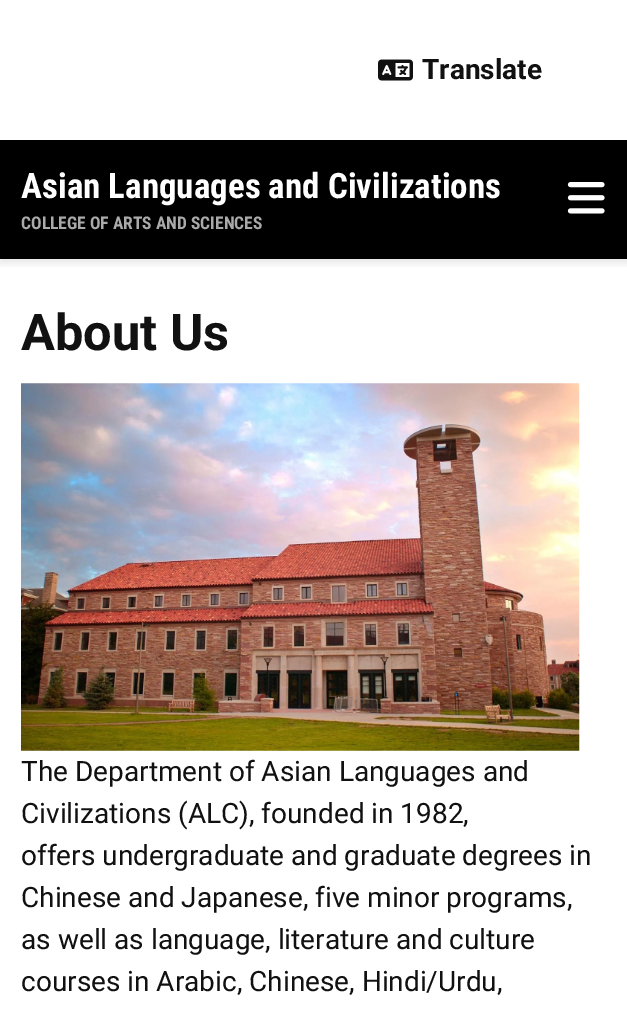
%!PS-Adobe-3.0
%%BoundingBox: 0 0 627 1027
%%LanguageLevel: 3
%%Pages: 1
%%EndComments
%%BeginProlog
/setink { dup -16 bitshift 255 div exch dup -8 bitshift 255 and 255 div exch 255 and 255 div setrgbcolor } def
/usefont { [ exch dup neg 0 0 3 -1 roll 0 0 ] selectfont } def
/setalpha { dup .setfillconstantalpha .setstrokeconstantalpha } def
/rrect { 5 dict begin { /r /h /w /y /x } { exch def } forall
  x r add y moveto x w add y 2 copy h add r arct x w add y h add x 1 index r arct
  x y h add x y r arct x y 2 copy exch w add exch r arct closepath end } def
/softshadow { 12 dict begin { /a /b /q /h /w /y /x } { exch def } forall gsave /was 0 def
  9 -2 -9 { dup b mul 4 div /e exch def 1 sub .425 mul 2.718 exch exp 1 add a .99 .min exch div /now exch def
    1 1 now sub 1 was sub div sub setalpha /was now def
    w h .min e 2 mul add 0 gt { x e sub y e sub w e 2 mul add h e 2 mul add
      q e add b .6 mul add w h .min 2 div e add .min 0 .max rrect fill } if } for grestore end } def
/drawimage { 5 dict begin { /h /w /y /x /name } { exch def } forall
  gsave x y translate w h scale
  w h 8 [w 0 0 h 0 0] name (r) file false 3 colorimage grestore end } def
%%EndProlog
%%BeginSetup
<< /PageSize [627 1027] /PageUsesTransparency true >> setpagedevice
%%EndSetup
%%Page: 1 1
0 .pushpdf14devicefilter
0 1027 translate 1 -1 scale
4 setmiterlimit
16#FFFFFF setink
0 0 627 1027 rectfill
gsave
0 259 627 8 rectclip
16#000000 setink
0 4 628 259 0 4.5 0.1 softshadow
grestore
(img1.raw) 378 59 35 22 drawimage
/Roboto-Bold 28 usefont
16#111111 setink
422 79 moveto (Translate) show
16#000000 setink
0 140 627 119 rectfill
/RobotoCondensed-Bold 35 usefont
16#FFFFFF setink
21 198 moveto (Asian Languages and Civilizations) show
/RobotoCondensed-Bold 17.5 usefont
16#AAAAAA setink
21 229 moveto (COLLEGE OF ARTS AND SCIENCES) show
(img2.raw) 567 182 38 32 drawimage
/Roboto-Bold 50.5 usefont
16#111111 setink
21 350 moveto (About Us) show
(img3.raw) 21 383 559 368 drawimage
/Roboto-Regular 28 usefont
[
    [(The Department of Asian Languages and) 21 781]
    [(Civilizations \(ALC\), founded in 1982,) 21 823]
    [(offers undergraduate and graduate degrees in) 21 865]
    [(Chinese and Japanese, five minor programs,) 21 907]
    [(as well as language, literature and culture) 21 949]
    [(courses in Arabic, Chinese, Hindi/Urdu,) 21 991]
] { aload pop moveto show } forall
.poppdf14devicefilter showpage
%%EOF
